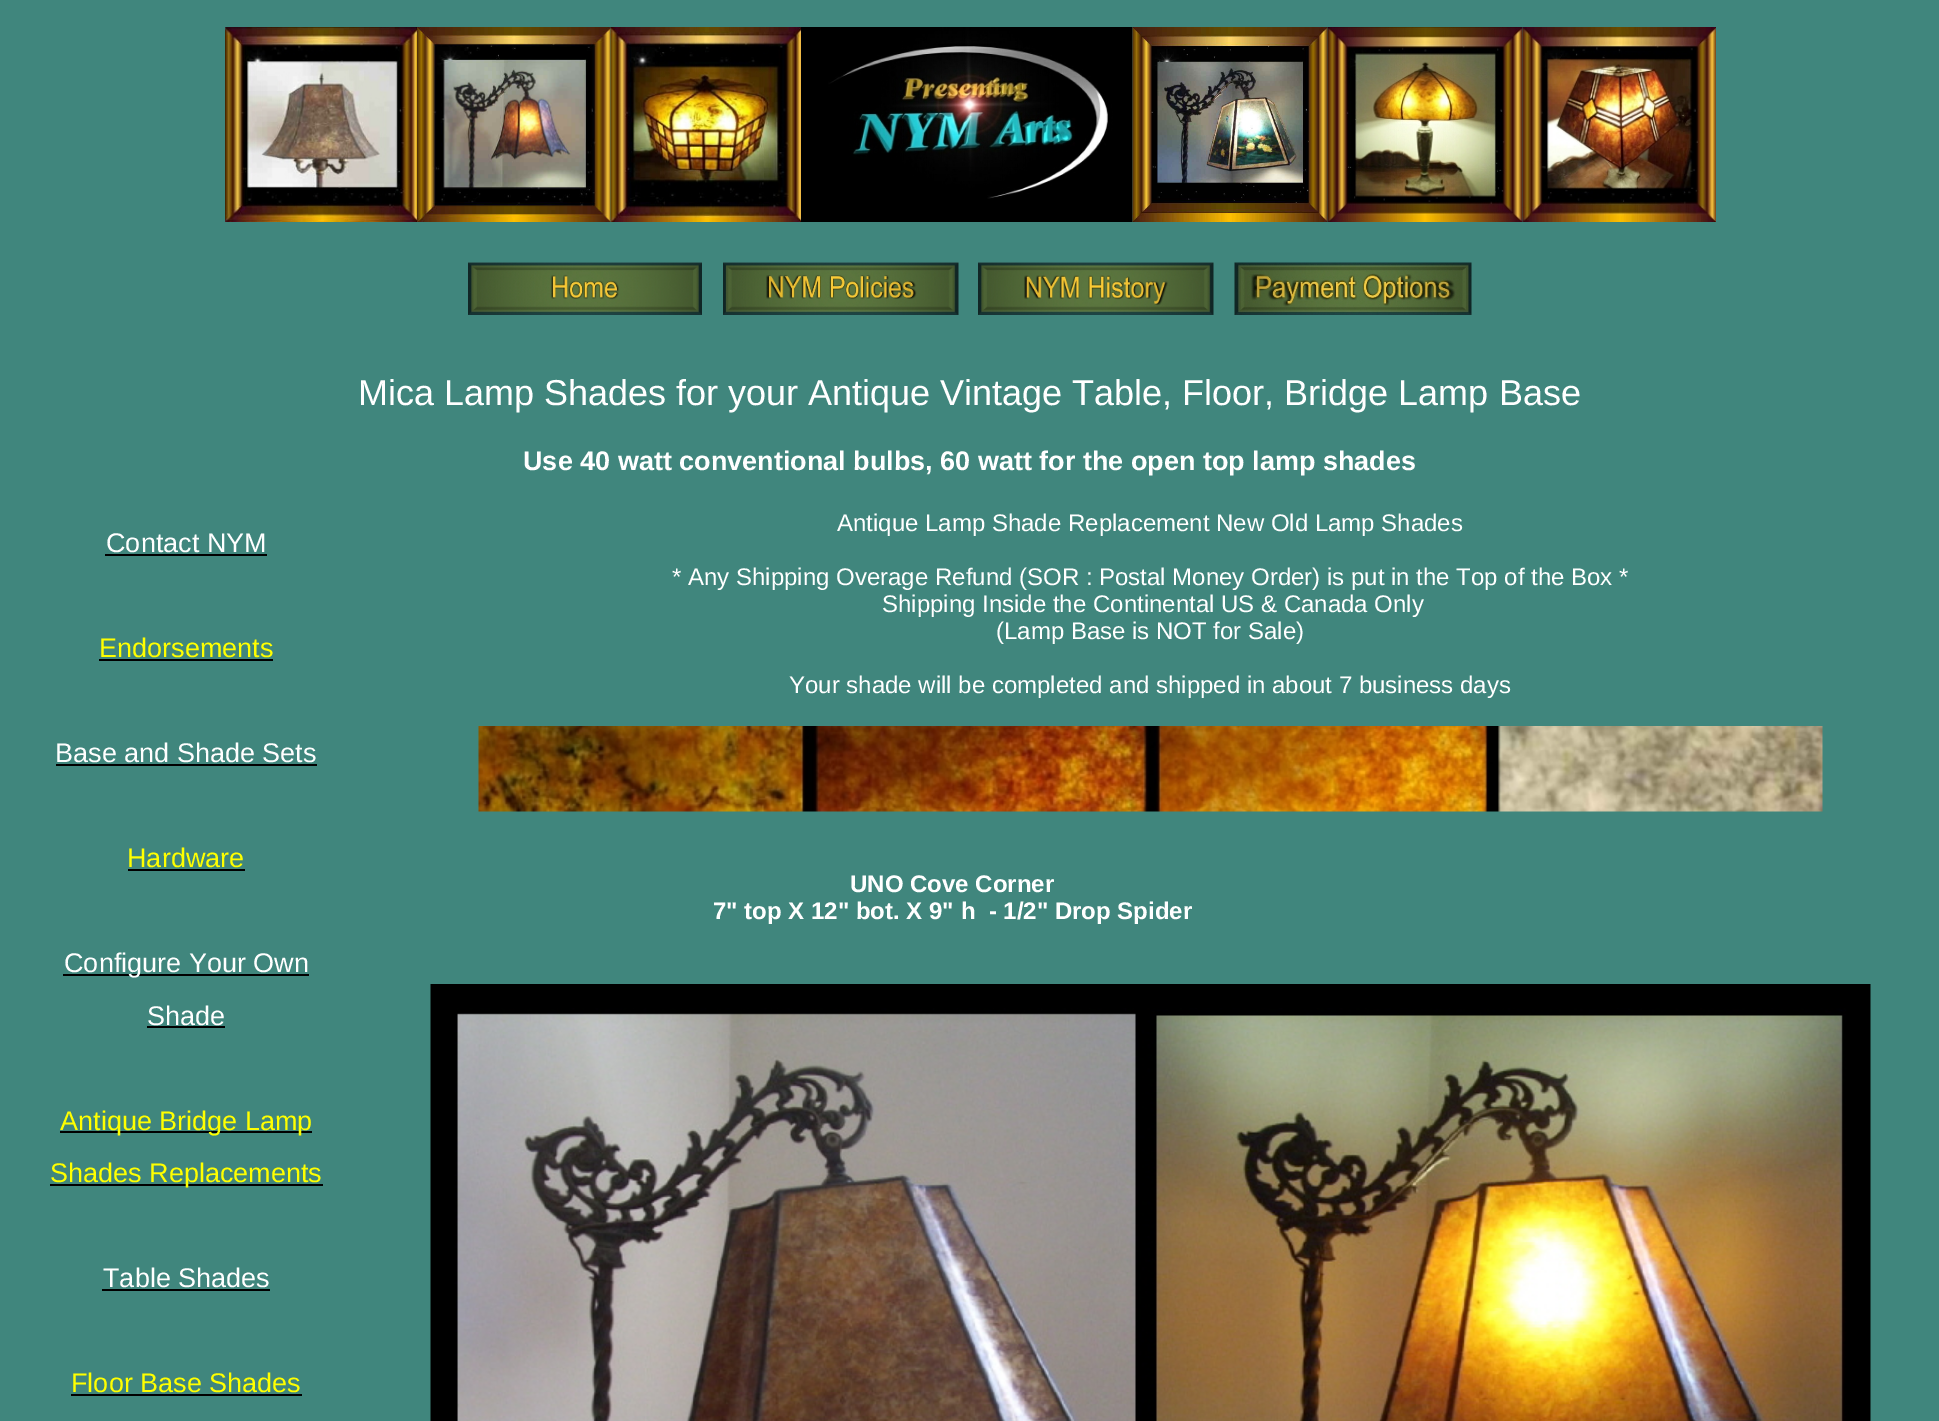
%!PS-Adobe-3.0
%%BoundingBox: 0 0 1939 1421
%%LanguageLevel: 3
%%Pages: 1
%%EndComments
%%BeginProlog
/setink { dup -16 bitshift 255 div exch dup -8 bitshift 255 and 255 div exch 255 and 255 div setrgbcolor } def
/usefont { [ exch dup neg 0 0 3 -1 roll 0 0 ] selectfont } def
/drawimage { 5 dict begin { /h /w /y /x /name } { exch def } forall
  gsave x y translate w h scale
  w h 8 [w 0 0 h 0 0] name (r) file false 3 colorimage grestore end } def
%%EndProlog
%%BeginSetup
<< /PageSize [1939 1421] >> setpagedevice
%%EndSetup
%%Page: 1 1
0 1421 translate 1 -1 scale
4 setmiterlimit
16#40867D setink
0 0 1939 1421 rectfill
(img1.raw) 225 27 192 195 drawimage
(img2.raw) 417 27 194 195 drawimage
(img3.raw) 610 27 191 195 drawimage
(img4.raw) 801 27 332 195 drawimage
(img5.raw) 1132 27 196 195 drawimage
(img6.raw) 1327 27 196 195 drawimage
(img7.raw) 1522 27 194 195 drawimage
(img8.raw) 468 262 234 53 drawimage
(img9.raw) 723 262 236 53 drawimage
(img10.raw) 978 262 236 53 drawimage
(img11.raw) 1234 262 238 53 drawimage
/LiberationSans-Regular 36 usefont
16#FFFFFF setink
358 405 moveto (Mica Lamp Shades for your Antique Vintage Table, Floor, Bridge Lamp Base) show
/LiberationSans-Bold 27 usefont
523 470 moveto (Use 40 watt conventional bulbs, 60 watt for the open top lamp shades) show
/LiberationSans-Regular 27 usefont
106 552 moveto (Contact NYM) show
16#000000 setink
105 554 162 2 rectfill
16#FFFF00 setink
99 657 moveto (Endorsements) show
16#000000 setink
99 659 174 2 rectfill
16#FFFFFF setink
55 762 moveto (Base and Shade Sets) show
16#000000 setink
56 764 261 2 rectfill
16#FFFF00 setink
127 867 moveto (Hardware) show
16#000000 setink
128 869 117 2 rectfill
63 974 246 2 rectfill
16#FFFFFF setink
64 972 moveto (Configure Your Own) show
147 1025 moveto (Shade) show
16#000000 setink
147 1026 78 2 rectfill
60 1131 252 2 rectfill
16#FFFF00 setink
60 1130 moveto (Antique Bridge Lamp) show
16#000000 setink
50 1184 273 2 rectfill
16#FFFF00 setink
50 1182 moveto (Shades Replacements) show
16#FFFFFF setink
103 1287 moveto (Table Shades) show
16#000000 setink
102 1289 168 2 rectfill
16#FFFF00 setink
71 1392 moveto (Floor Base Shades) show
16#000000 setink
71 1394 231 2 rectfill
/LiberationSans-Regular 24 usefont
16#FFFFFF setink
[
    [(Antique Lamp Shade Replacement New Old Lamp Shades) 837 531]
    [(* Any Shipping Overage Refund \(SOR : Postal Money Order\) is put in the Top of the Box *) 672 585]
    [(Shipping Inside the Continental US & Canada Only) 882 612]
    [(\(Lamp Base is NOT for Sale\)) 996 639]
    [(Your shade will be completed and shipped in about 7 business days) 789 693]
] { aload pop moveto show } forall
(img12.raw) 478 726 1345 86 drawimage
/LiberationSans-Bold 24 usefont
850 892 moveto (UNO Cove Corner) show
713 919 moveto (7" top X 12" bot. X 9" h  - 1/2" Drop Spider) show
(img13.raw) 430 984 1441 437 drawimage
showpage
%%EOF
